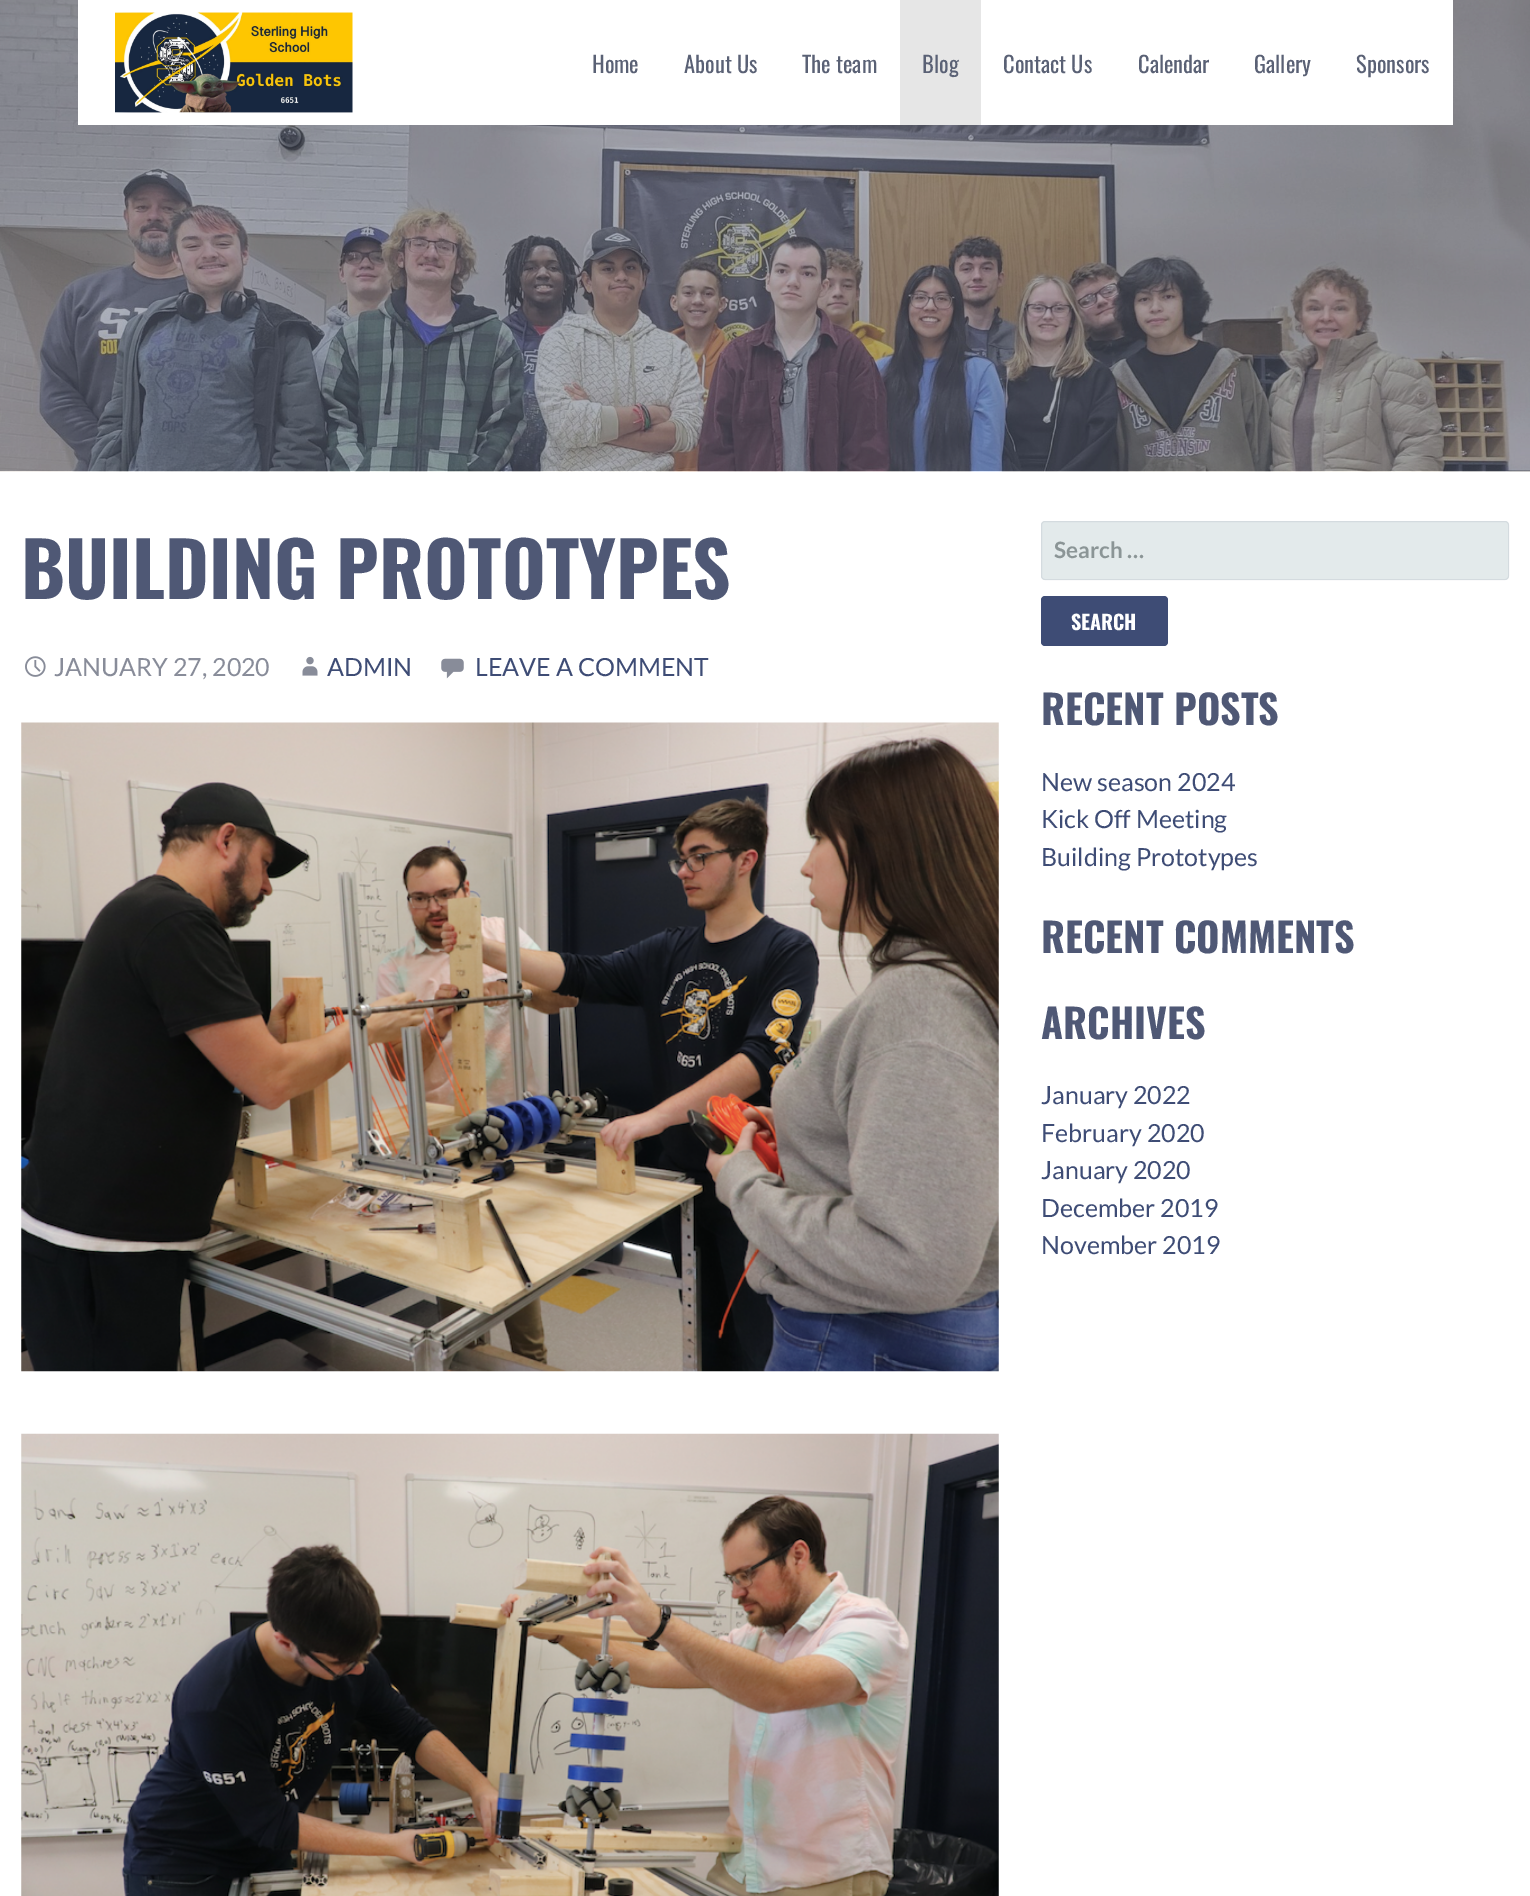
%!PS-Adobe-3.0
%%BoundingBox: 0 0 1530 1896
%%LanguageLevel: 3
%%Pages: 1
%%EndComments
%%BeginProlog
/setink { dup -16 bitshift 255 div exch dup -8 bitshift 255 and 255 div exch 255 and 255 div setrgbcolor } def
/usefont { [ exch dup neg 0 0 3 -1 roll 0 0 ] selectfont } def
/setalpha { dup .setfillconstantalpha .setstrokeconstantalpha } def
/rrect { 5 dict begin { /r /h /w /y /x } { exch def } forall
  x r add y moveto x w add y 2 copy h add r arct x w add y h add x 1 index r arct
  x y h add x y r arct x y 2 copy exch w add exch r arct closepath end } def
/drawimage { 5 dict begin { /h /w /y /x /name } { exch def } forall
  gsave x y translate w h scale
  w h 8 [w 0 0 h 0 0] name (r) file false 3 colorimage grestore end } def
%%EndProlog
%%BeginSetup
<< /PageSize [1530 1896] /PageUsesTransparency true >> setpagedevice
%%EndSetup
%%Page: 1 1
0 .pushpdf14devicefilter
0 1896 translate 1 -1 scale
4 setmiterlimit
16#FFFFFF setink
0 0 1530 1896 rectfill
(img1.raw) 0 0 1530 472 drawimage
78 0 1375 125 rectfill
(img2.raw) 115 12 238 101 drawimage
/Oswald-Regular 22.5 usefont
16#5A6175 setink
[
    [(Home) 592 73]
    [(About Us) 684 73]
    [(The team) 802 73]
] { aload pop moveto show } forall
16#E6E6E6 setink
900 0 81 125 rectfill
16#5A6175 setink
[
    [(Blog) 922 73]
    [(Contact Us) 1003 73]
    [(Calendar) 1138 73]
    [(Gallery) 1254 73]
    [(Sponsors) 1356 73]
] { aload pop moveto show } forall
/Oswald-Bold 75 usefont
16#4F5875 setink
21 599 moveto (BUILDING PROTOTYPES) show
(img3.raw) 25 656 21 21 drawimage
/Lato-Regular 25 usefont
16#888C99 setink
54 676 moveto (JANUARY 27, 2020) show
(img4.raw) 302 656 16 20 drawimage
16#3E4C75 setink
327 676 moveto (ADMIN) show
(img5.raw) 441 658 23 21 drawimage
475 676 moveto (LEAVE A COMMENT) show
(img6.raw) 21 722 978 650 drawimage
(img7.raw) 21 1433 978 463 drawimage
16#E3EAEB setink
1041 521 468 59 4 rrect fill
0.1 setalpha
16#4F5875 setink
1041.5 521.5 467 58 3.5 rrect stroke
/Lato-Bold 22.5 usefont
1 setalpha
16#8B9596 setink
1054 558 moveto (Search …) show
16#3E4C75 setink
1041 596 127 50 4 rrect fill
/Oswald-Bold 20 usefont
16#FFFFFF setink
1071 630 moveto (SEARCH) show
/Oswald-Bold 40 usefont
16#4F5875 setink
1041 725 moveto (RECENT POSTS) show
/Lato-Regular 25 usefont
16#3E4C75 setink
[
    [(New season 2024) 1041 791]
    [(Kick Off Meeting) 1041 828]
    [(Building Prototypes) 1041 866]
] { aload pop moveto show } forall
/Oswald-Bold 40 usefont
16#4F5875 setink
1041 953 moveto (RECENT COMMENTS) show
1041 1039 moveto (ARCHIVES) show
/Lato-Regular 25 usefont
16#3E4C75 setink
[
    [(January 2022) 1041 1104]
    [(February 2020) 1041 1142]
    [(January 2020) 1041 1179]
    [(December 2019) 1041 1217]
    [(November 2019) 1041 1254]
] { aload pop moveto show } forall
.poppdf14devicefilter showpage
%%EOF
